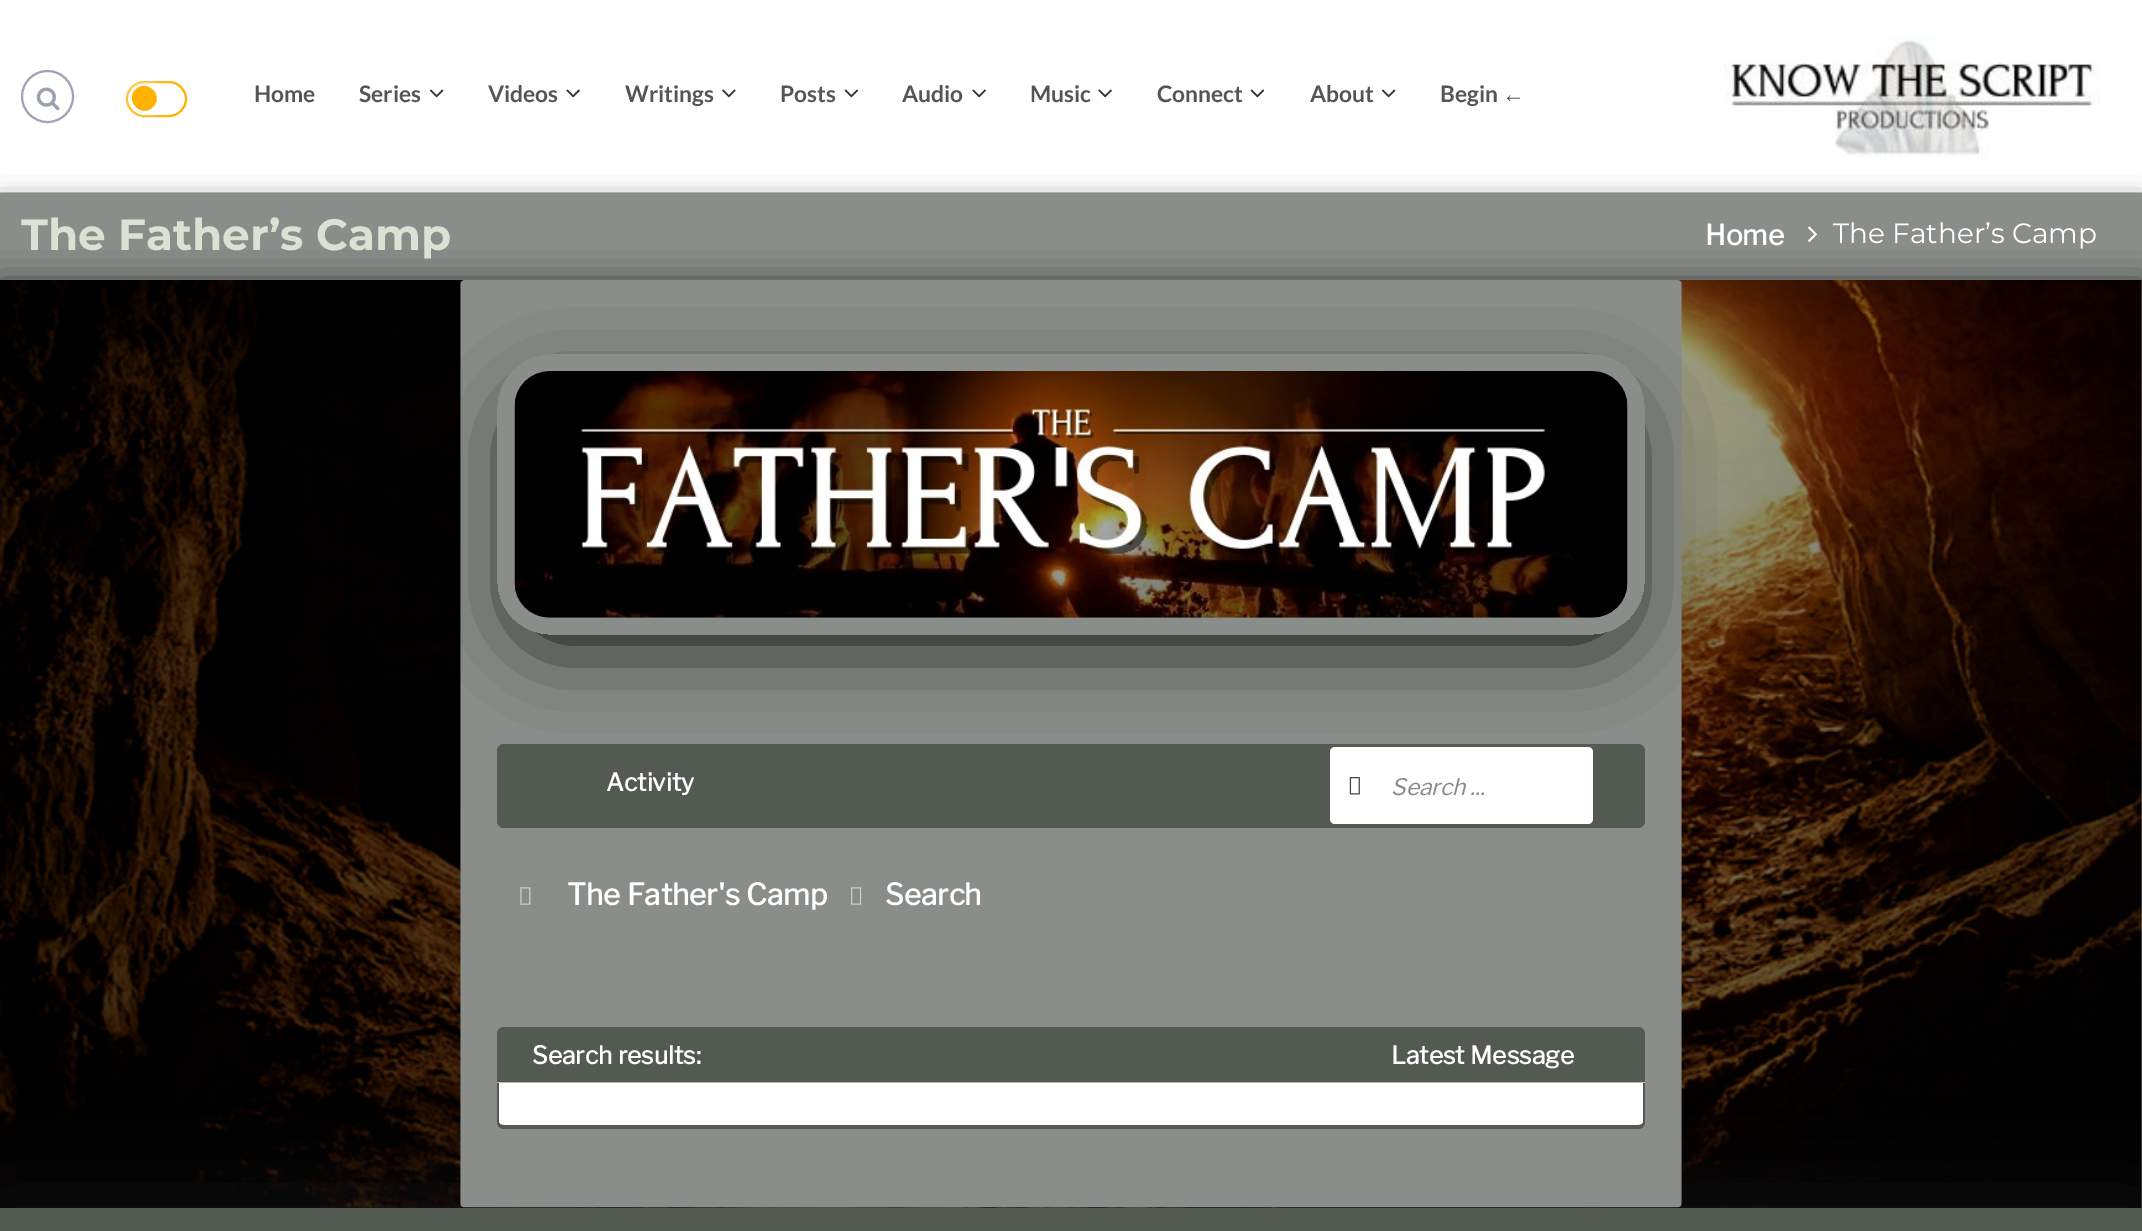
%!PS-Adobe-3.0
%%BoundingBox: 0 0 2142 1231
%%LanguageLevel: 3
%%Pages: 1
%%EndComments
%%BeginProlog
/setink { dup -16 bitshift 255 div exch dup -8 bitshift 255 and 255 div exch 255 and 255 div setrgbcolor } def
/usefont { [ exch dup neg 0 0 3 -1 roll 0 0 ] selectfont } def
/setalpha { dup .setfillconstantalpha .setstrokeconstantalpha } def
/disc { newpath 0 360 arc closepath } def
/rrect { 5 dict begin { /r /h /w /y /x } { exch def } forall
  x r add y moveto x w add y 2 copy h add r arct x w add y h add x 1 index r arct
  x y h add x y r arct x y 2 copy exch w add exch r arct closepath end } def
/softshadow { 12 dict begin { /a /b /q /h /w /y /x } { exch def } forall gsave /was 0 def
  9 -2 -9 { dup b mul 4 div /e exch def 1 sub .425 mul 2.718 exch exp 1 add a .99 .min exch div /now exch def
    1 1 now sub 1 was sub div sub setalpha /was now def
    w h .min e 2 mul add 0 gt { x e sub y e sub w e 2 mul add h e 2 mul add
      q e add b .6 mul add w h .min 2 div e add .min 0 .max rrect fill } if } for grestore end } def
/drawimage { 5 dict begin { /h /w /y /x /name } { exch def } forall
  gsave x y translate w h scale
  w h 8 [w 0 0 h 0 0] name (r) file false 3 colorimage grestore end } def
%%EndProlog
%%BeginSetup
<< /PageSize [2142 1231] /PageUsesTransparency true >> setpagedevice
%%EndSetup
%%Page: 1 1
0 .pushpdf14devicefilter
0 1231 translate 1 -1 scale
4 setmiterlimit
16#FFFFFF setink
0 0 2142 1231 rectfill
(img1.raw) 2141 280 1 928 drawimage
16#9CA6B2 setink
2 setlinewidth
47.5 96.5 25.5 disc stroke
(img2.raw) 36 87 24 24 drawimage
16#FFB200 setink
127 82 59 34 17 rrect stroke
16#FFFFFF setink
133 86 25 24 12 7.5 1 softshadow
16#FFB200 setink
135.5 89.5 moveto 147 78.5 164.5 95.5 153 107 curveto 141.5 118.5 124.5 101 135.5 89.5 curveto closepath fill
/Lato-Bold 22.75 usefont
16#555555 setink
254 102 moveto (Home) show
359 102 moveto (Series) show
(img3.raw) 429 89 15 9 drawimage
488 102 moveto (Videos) show
(img4.raw) 566 89 14 9 drawimage
625 102 moveto (Writings) show
(img5.raw) 722 89 14 9 drawimage
780 102 moveto (Posts) show
(img6.raw) 844 89 15 9 drawimage
902 102 moveto (Audio) show
(img4.raw) 972 89 14 9 drawimage
1030 102 moveto (Music) show
(img4.raw) 1098 89 14 9 drawimage
1157 102 moveto (Connect) show
(img6.raw) 1250 89 15 9 drawimage
1310 102 moveto (About) show
(img3.raw) 1381 89 15 9 drawimage
1440 102 moveto (Begin) show
/LiberationSans-Bold 22.75 usefont
1502 102 moveto (←) show
(img7.raw) 1724 35 376 122 drawimage
16#666666 setink
0 201 2142 88 0 11.5 1 softshadow
16#898E8A setink
0 193 2142 87 rectfill
0.5 setalpha
16#898D89 setink
0 192 2142 1 rectfill
1 setalpha
16#000000 setink
0 289 2142 927 0 17.5 0.2 softshadow
0 289 2142 927 0 17.5 0.7 softshadow
/Montserrat-Bold 43.75 usefont
16#DBE2D3 setink
21 250 moveto (The Father’s Camp) show
/LibreFranklin-Bold 28 usefont
16#FFFFFF setink
1705 245 moveto (Home) show
(img8.raw) 1808 226 9 16 drawimage
/Montserrat-Regular 28 usefont
1833 243 moveto (The Father’s Camp) show
(img9.raw) 0 280 2142 928 drawimage
16#1A1A1A setink
0 1216 2142 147 0 44 1 softshadow
(img10.raw) 460 280 1222 928 drawimage
gsave
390 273 moveto 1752 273 lineto 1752 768 lineto 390 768 lineto closepath 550 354 moveto 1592 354 lineto 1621.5 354 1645 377.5 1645 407 curveto 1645 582 lineto 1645 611.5 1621.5 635 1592 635 curveto 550 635 lineto 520.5 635 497 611.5 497 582 curveto 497 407 lineto 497 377.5 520.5 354 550 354 curveto closepath eoclip newpath
16#000000 setink
523 406 1096 229 26 44 1 softshadow
grestore
(img11.raw) 514 371 1114 247 drawimage
16#525A51 setink
497 744 1148 84 7 rrect fill
/LibreFranklin-Bold 24.5 usefont
16#FFFFFF setink
606 791 moveto (Activity) show
1330 747 263 77 5 rrect fill
(img12.raw) 1349 777 11 18 drawimage
/LibreFranklin-Italic 22.75 usefont
16#888888 setink
1391 795 moveto (Search ...) show
(img13.raw) 520 887 11 18 drawimage
/LibreFranklin-Bold 29.5 usefont
16#FFFFFF setink
567 905 moveto (The Father's Camp) show
(img14.raw) 851 887 11 18 drawimage
885 905 moveto (Search) show
16#525A51 setink
504 1027 moveto 1638 1027 lineto 1642 1027 1645 1030 1645 1034 curveto 1645 1083 lineto 497 1083 lineto 497 1034 lineto 497 1030 500 1027 504 1027 curveto closepath fill
16#BFB5AA setink
497 1082 1148 1 rectfill
/LibreFranklin-Bold 24.5 usefont
16#FFFFFF setink
532 1064 moveto (Search results:) show
1391 1064 moveto (Latest Message) show
499 1083 moveto 1643 1083 lineto 1643 1122 lineto 1643 1124 1641 1125 1638 1125 curveto 504 1125 lineto 501 1125 499 1124 499 1122 curveto closepath fill
16#525A51 setink
497 1083 moveto 1645 1083 lineto 1645 1122 lineto 1645 1126 1642 1129 1638 1129 curveto 504 1129 lineto 500 1129 497 1126 497 1122 curveto closepath 499 1083 moveto 1643 1083 lineto 1643 1122 lineto 1643 1124 1641 1125 1638 1125 curveto 504 1125 lineto 501 1125 499 1124 499 1122 curveto closepath eofill
0 1208 2142 23 rectfill
.poppdf14devicefilter showpage
%%EOF
